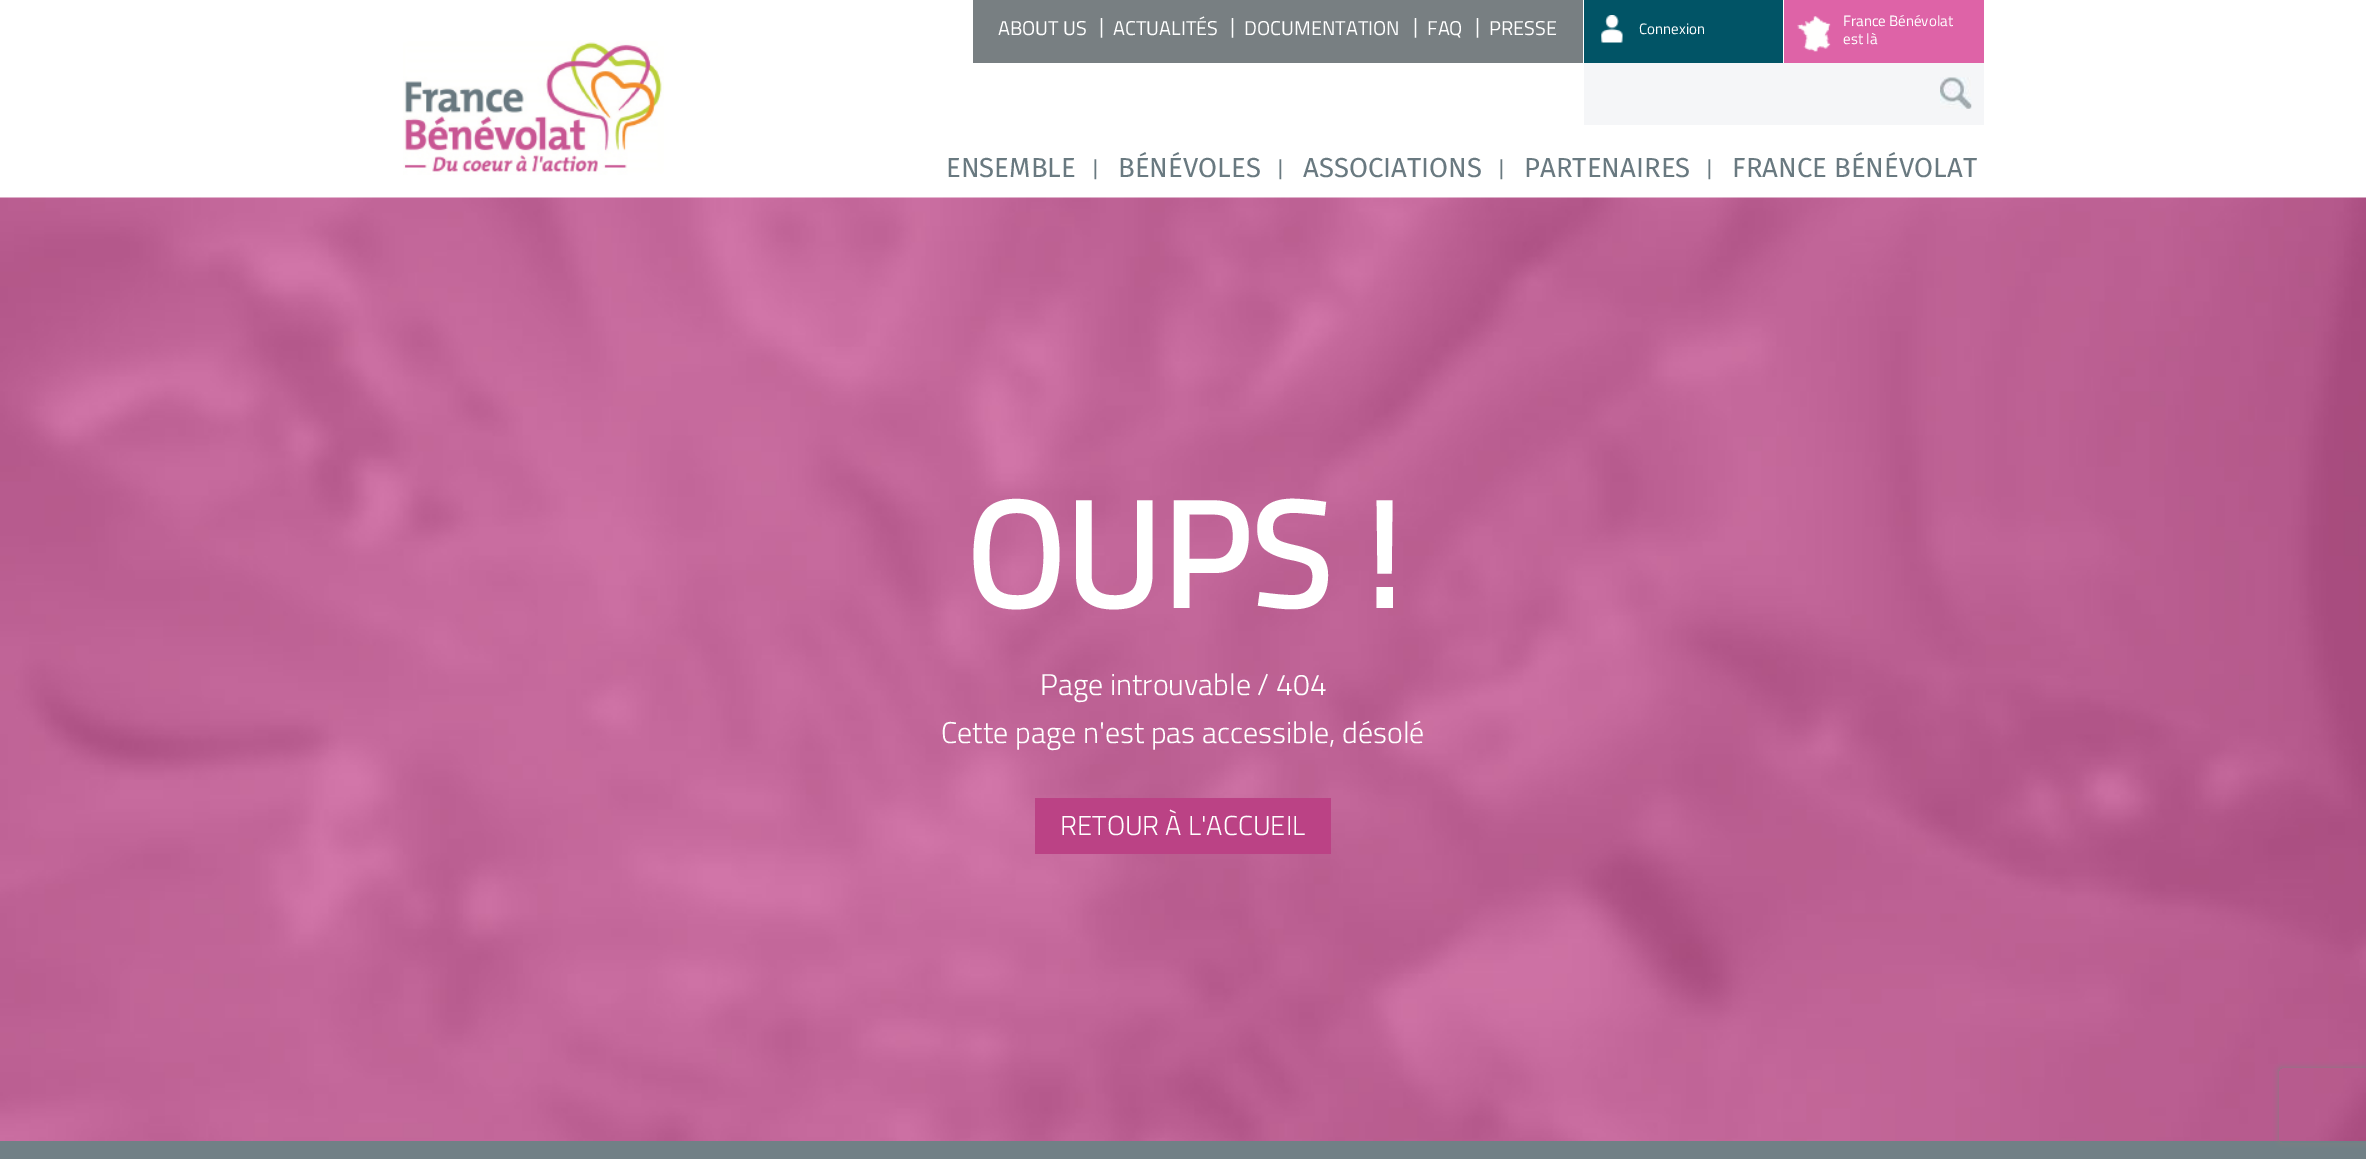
%!PS-Adobe-3.0
%%BoundingBox: 0 0 2366 1159
%%LanguageLevel: 3
%%Pages: 1
%%EndComments
%%BeginProlog
/setink { dup -16 bitshift 255 div exch dup -8 bitshift 255 and 255 div exch 255 and 255 div setrgbcolor } def
/usefont { [ exch dup neg 0 0 3 -1 roll 0 0 ] selectfont } def
/setalpha { dup .setfillconstantalpha .setstrokeconstantalpha } def
/rrect { 5 dict begin { /r /h /w /y /x } { exch def } forall
  x r add y moveto x w add y 2 copy h add r arct x w add y h add x 1 index r arct
  x y h add x y r arct x y 2 copy exch w add exch r arct closepath end } def
/softshadow { 12 dict begin { /a /b /q /h /w /y /x } { exch def } forall gsave /was 0 def
  9 -2 -9 { dup b mul 4 div /e exch def 1 sub .425 mul 2.718 exch exp 1 add a .99 .min exch div /now exch def
    1 1 now sub 1 was sub div sub setalpha /was now def
    w h .min e 2 mul add 0 gt { x e sub y e sub w e 2 mul add h e 2 mul add
      q e add b .6 mul add w h .min 2 div e add .min 0 .max rrect fill } if } for grestore end } def
/drawimage { 5 dict begin { /h /w /y /x /name } { exch def } forall
  gsave x y translate w h scale
  w h 8 [w 0 0 h 0 0] name (r) file false 3 colorimage grestore end } def
%%EndProlog
%%BeginSetup
<< /PageSize [2366 1159] /PageUsesTransparency true >> setpagedevice
%%EndSetup
%%Page: 1 1
0 .pushpdf14devicefilter
0 1159 translate 1 -1 scale
4 setmiterlimit
16#FFFFFF setink
0 0 2366 1159 rectfill
16#787F82 setink
973 0 610 63 rectfill
/TitilliumWeb-Regular 20 usefont
16#FFFFFF setink
998 35 moveto (ABOUT US) show
/TitilliumWeb-Regular 21 usefont
1099 33 moveto (|) show
/TitilliumWeb-Regular 20 usefont
1113 35 moveto (ACTUALITÉS) show
/TitilliumWeb-Regular 21 usefont
1230 33 moveto (|) show
/TitilliumWeb-Regular 20 usefont
1244 35 moveto (DOCUMENTATION) show
/TitilliumWeb-Regular 21 usefont
1413 33 moveto (|) show
/TitilliumWeb-Regular 20 usefont
1427 35 moveto (FAQ) show
/TitilliumWeb-Regular 21 usefont
1475 33 moveto (|) show
/TitilliumWeb-Regular 20 usefont
1489 35 moveto (PRESSE) show
16#015466 setink
1584 0 199 63 rectfill
(img1.raw) 1601 15 22 28 drawimage
/TitilliumWeb-Regular 15 usefont
16#FFFFFF setink
1639 34 moveto (Connexion) show
16#DE63A7 setink
1784 0 200 63 rectfill
(img2.raw) 1797 16 34 36 drawimage
16#FFFFFF setink
1843 26 moveto (France Bénévolat) show
1843 44 moveto (est là) show
16#F5F6F8 setink
1584 63 400 62 rectfill
(img3.raw) 1940 77 32 32 drawimage
(img4.raw) 403 40 261 135 drawimage
/FiraSans-Regular 27.5 usefont
16#697980 setink
946 177 moveto (ENSEMBLE) show
/FiraSans-Regular 22 usefont
1091 177 moveto (|) show
/FiraSans-Regular 27.5 usefont
1118 177 moveto (BÉNÉVOLES) show
/FiraSans-Regular 22 usefont
1276 177 moveto (|) show
/FiraSans-Regular 27.5 usefont
1303 177 moveto (ASSOCIATIONS) show
/FiraSans-Regular 22 usefont
1497 177 moveto (|) show
/FiraSans-Regular 27.5 usefont
1524 177 moveto (PARTENAIRES) show
/FiraSans-Regular 22 usefont
1705 177 moveto (|) show
/FiraSans-Regular 27.5 usefont
1732 177 moveto (FRANCE BÉNÉVOLAT) show
(img5.raw) 0 197 2366 944 drawimage
/TitilliumWeb-Bold 150 usefont
16#FFFFFF setink
965 608 moveto (OUPS !) show
/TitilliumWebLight-Light 30 usefont
1040 695 moveto (Page introuvable / 404) show
941 743 moveto (Cette page n'est pas accessible, désolé) show
16#BB4285 setink
1035 798 296 56 rectfill
/TitilliumWebLight-Light 27.5 usefont
16#FFFFFF setink
1060 835 moveto (RETOUR À L'ACCUEIL) show
16#718086 setink
0 1141 2366 18 rectfill
gsave
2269 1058 moveto 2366 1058 lineto 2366 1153 lineto 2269 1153 lineto closepath 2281.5 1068 moveto 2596.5 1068 lineto 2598 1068 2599 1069 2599 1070.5 curveto 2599 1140.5 lineto 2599 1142 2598 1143 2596.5 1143 curveto 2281.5 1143 lineto 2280 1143 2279 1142 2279 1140.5 curveto 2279 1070.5 lineto 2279 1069 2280 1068 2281.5 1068 curveto closepath eoclip newpath
16#808080 setink
2279 1068 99 75 2.5 3 1 softshadow
grestore
.poppdf14devicefilter showpage
%%EOF
